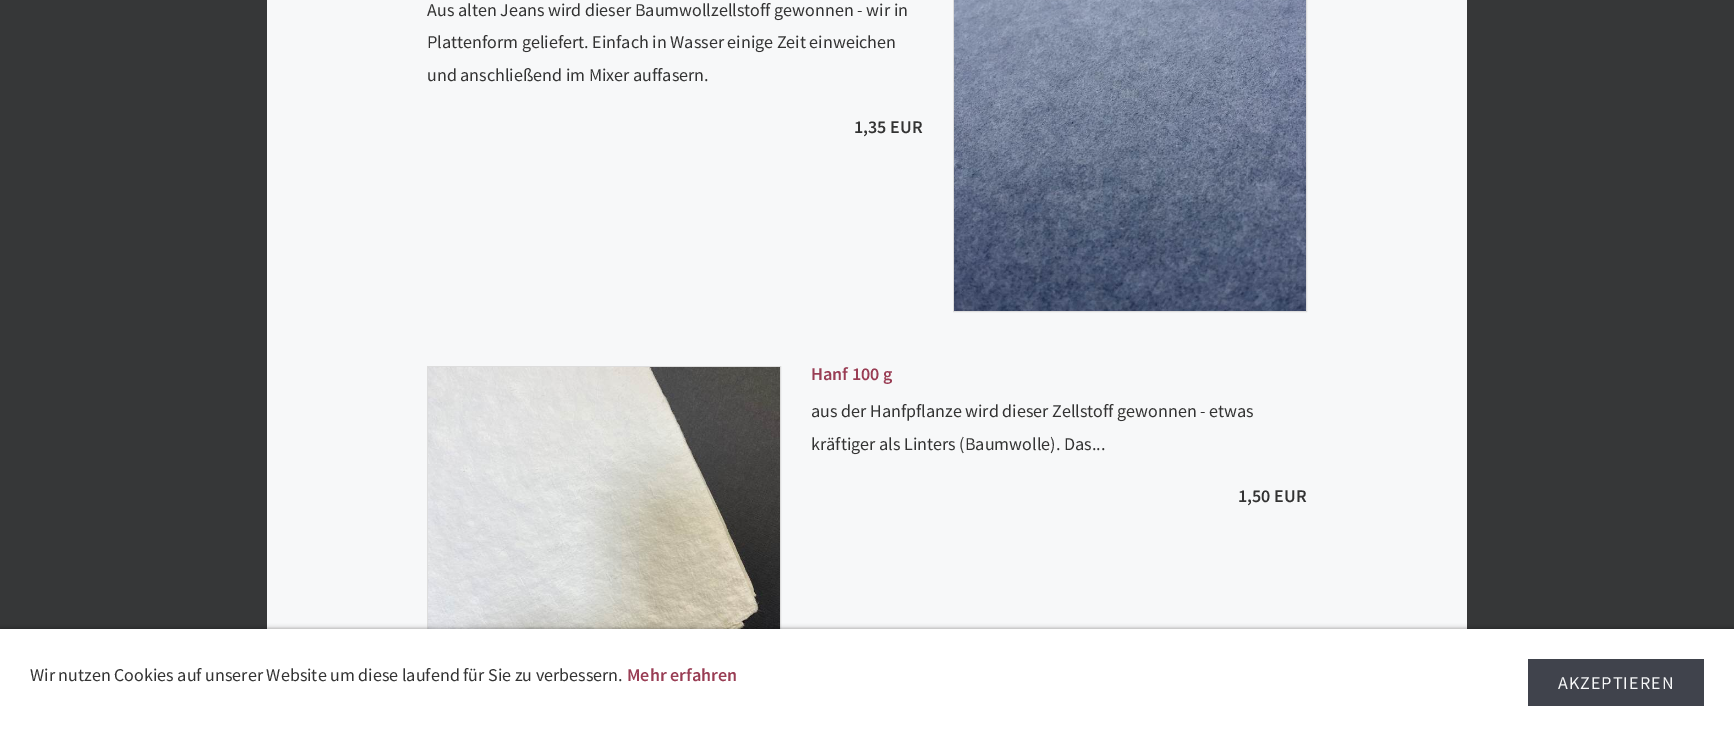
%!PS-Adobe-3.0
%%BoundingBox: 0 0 1734 736
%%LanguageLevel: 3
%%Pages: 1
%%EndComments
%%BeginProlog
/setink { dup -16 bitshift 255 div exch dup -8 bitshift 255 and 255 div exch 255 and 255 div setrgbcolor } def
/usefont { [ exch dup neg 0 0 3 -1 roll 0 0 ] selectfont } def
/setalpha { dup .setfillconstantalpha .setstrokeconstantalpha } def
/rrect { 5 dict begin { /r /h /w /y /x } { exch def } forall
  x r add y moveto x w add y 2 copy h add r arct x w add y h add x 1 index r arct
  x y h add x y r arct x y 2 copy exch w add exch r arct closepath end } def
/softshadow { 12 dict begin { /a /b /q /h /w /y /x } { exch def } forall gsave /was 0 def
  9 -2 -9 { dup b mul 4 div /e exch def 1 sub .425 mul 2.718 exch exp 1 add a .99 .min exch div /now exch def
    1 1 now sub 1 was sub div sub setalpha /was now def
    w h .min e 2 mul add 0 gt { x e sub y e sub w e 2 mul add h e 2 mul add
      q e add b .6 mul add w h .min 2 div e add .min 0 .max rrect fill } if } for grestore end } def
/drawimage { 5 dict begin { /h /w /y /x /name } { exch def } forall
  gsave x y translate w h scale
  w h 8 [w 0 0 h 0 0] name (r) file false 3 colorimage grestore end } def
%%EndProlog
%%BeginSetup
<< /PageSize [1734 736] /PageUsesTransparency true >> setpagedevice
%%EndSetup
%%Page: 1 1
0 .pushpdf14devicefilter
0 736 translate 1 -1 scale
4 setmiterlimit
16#363738 setink
0 0 1734 736 rectfill
16#F7F8F9 setink
267 0 1200 629 rectfill
/SourceSansPro-Regular 18 usefont
16#333333 setink
[
    [(Aus alten Jeans wird dieser Baumwollzellstoff gewonnen - wir in) 427 16]
    [(Plattenform geliefert. Einfach in Wasser einige Zeit einweichen) 427 48]
    [(und anschließend im Mixer auffasern.) 427 81]
] { aload pop moveto show } forall
16#DDDDDD setink
953.5 -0.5 353 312 rectstroke
(img1.raw) 954 0 352 311 drawimage
/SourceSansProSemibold-SemiBold 18 usefont
16#333333 setink
854 133 moveto (1,35 EUR) show
16#DDDDDD setink
427.5 366.5 353 353 rectstroke
(img2.raw) 428 367 352 262 drawimage
16#993D54 setink
811 380 moveto (Hanf 100 g) show
/SourceSansPro-Regular 18 usefont
16#333333 setink
811 417 moveto (aus der Hanfpflanze wird dieser Zellstoff gewonnen - etwas) show
811 450 moveto (kräftiger als Linters \(Baumwolle\). Das...) show
/SourceSansProSemibold-SemiBold 18 usefont
1238 502 moveto (1,50 EUR) show
16#000000 setink
0 629 1734 107 0 2.5 0.4 softshadow
16#FFFFFF setink
0 629 1734 107 rectfill
/SourceSansPro-Regular 18 usefont
16#333333 setink
30 681 moveto (Wir nutzen Cookies auf unserer Website um diese laufend für Sie zu verbessern.) show
/SourceSansProSemibold-SemiBold 18 usefont
16#993D54 setink
627 681 moveto (Mehr erfahren) show
16#40434C setink
1528 659 176 47 rectfill
/SourceSansPro-Regular 18 usefont
16#F7F8F9 setink
1558 689 moveto 1 0 (AKZEPTIEREN) ashow
.poppdf14devicefilter showpage
%%EOF
